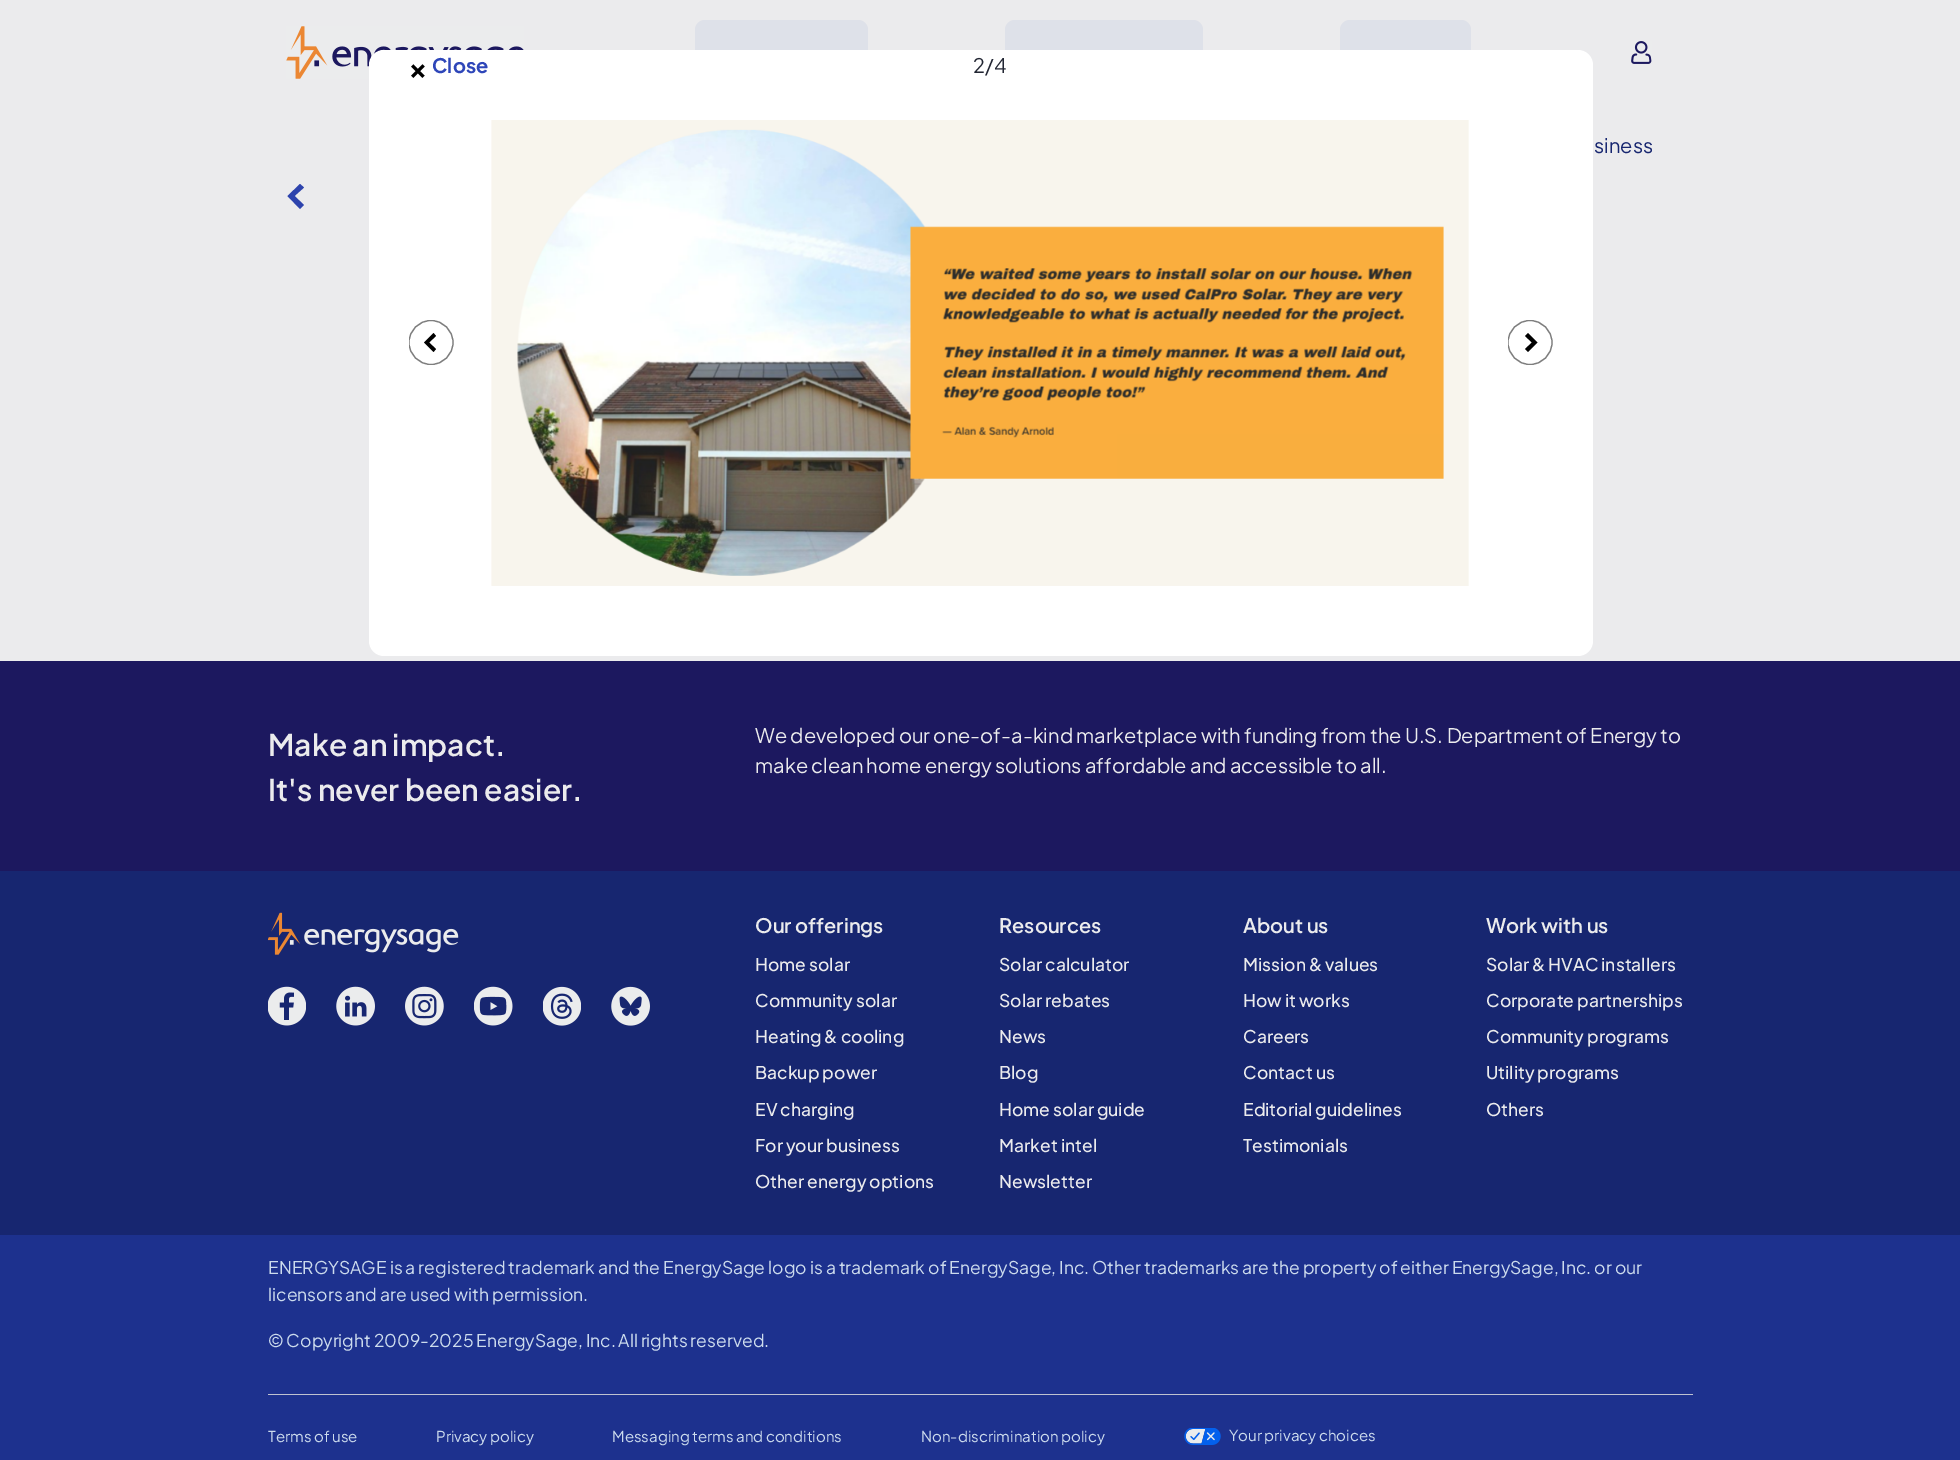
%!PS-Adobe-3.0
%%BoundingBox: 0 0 1960 1460
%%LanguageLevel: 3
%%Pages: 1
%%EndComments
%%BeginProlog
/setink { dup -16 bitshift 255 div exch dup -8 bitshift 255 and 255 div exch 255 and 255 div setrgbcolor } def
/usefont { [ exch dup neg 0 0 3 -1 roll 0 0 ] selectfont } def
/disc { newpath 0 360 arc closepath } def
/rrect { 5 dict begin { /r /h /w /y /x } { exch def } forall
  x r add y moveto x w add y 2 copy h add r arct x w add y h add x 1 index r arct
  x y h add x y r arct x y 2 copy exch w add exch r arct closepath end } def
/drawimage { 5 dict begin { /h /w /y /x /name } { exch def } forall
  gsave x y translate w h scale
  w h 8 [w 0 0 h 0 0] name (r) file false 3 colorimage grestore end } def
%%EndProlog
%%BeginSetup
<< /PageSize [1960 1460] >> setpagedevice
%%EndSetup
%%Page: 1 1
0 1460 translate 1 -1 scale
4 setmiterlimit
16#EBEBED setink
0 0 1960 1460 rectfill
(img10.raw) 286 26 238 53 drawimage
16#DEE1E9 setink
695 20 173 70 10 rrect fill
1005 20 198 70 10 rrect fill
1340 20 131 70 10 rrect fill
16#FFFFFF setink
369 50 1224 606 15 rrect fill
/PlusJakartaSans-Bold 30 usefont
16#000000 setink
408 78 moveto (×) show
/PlusJakartaSans-Bold 20 usefont
16#2E46B9 setink
432 73 moveto (Close) show
/PlusJakartaSans-Regular 20 usefont
16#222633 setink
973 73 moveto (2/4) show
16#000000 setink
433.5 333 moveto 436 336 lineto 429 342.5 lineto 436 349 lineto 433.5 352 lineto 424 342.5 lineto closepath eofill
gsave
409 320 45 45 rectclip
16#7E7E7E setink
1.2 setlinewidth
431 342.5 22 disc stroke
grestore
(img1.raw) 491 120 978 466 drawimage
1528 352 moveto 1525 349 lineto 1532 342.5 lineto 1525 336 lineto 1528 333 lineto 1537.5 342.5 lineto closepath eofill
gsave
1508 320 45 45 rectclip
16#7E7E7E setink
1.2 setlinewidth
1530 342.5 22 disc stroke
grestore
16#2D43AD setink
300 184 moveto 304 187.5 lineto 294.5 196 lineto 304 205 lineto 300 209 lineto 287.5 196 lineto closepath eofill
16#1C185F setink
0 661 1960 210 rectfill
/PlusJakartaSans-SemiBold 30 usefont
16#EBEBED setink
268 756 moveto (Make an impact.) show
268 801 moveto (It's never been easier.) show
/PlusJakartaSans-Regular 20 usefont
755 743 moveto (We developed our one-of-a-kind marketplace with funding from the U.S. Department of Energy to) show
755 773 moveto (make clean home energy solutions affordable and accessible to all.) show
16#172670 setink
0 871 1960 364 rectfill
(img2.raw) 268 912 191 43 drawimage
(img3.raw) 268 986 38 40 drawimage
(img4.raw) 336 986 39 40 drawimage
(img5.raw) 405 986 39 40 drawimage
(img6.raw) 474 986 39 40 drawimage
(img7.raw) 543 986 38 40 drawimage
(img8.raw) 611 986 39 40 drawimage
/PlusJakartaSans-SemiBold 20 usefont
16#EBEBED setink
755 933 moveto (Our offerings) show
/PlusJakartaSans-Medium 17.5 usefont
[
    [(Home solar) 755 971]
    [(Community solar) 755 1007]
    [(Heating & cooling) 755 1043]
    [(Backup power) 755 1079]
    [(EV charging) 755 1116]
    [(For your business) 755 1152]
    [(Other energy options) 755 1188]
] { aload pop moveto show } forall
/PlusJakartaSans-SemiBold 20 usefont
999 933 moveto (Resources) show
/PlusJakartaSans-Medium 17.5 usefont
[
    [(Solar calculator) 999 971]
    [(Solar rebates) 999 1007]
    [(News) 999 1043]
    [(Blog) 999 1079]
    [(Home solar guide) 999 1116]
    [(Market intel) 999 1152]
    [(Newsletter) 999 1188]
] { aload pop moveto show } forall
/PlusJakartaSans-SemiBold 20 usefont
1243 933 moveto (About us) show
/PlusJakartaSans-Medium 17.5 usefont
[
    [(Mission & values) 1243 971]
    [(How it works) 1243 1007]
    [(Careers) 1243 1043]
    [(Contact us) 1243 1079]
    [(Editorial guidelines) 1243 1116]
    [(Testimonials) 1243 1152]
] { aload pop moveto show } forall
/PlusJakartaSans-SemiBold 20 usefont
1486 933 moveto (Work with us) show
/PlusJakartaSans-Medium 17.5 usefont
[
    [(Solar & HVAC installers) 1486 971]
    [(Corporate partnerships) 1486 1007]
    [(Community programs) 1486 1043]
    [(Utility programs) 1486 1079]
    [(Others) 1486 1116]
] { aload pop moveto show } forall
16#1D318E setink
0 1235 1960 225 rectfill
/PlusJakartaSans-Regular 17.5 usefont
16#CCDBED setink
268 1274 moveto (ENERGYSAGE is a registered trademark and the EnergySage logo is a trademark of EnergySage, Inc. Other trademarks are the property of either EnergySage, Inc. or our) show
268 1301 moveto (licensors and are used with permission.) show
268 1347 moveto -0.25 0 32 (© Copyright 2009-2025 EnergySage, Inc. All rights reserved.) widthshow
16#BFC2D0 setink
268 1394 1425 1 rectfill
/PlusJakartaSans-Regular 15 usefont
16#CCDBED setink
[
    [(Terms of use) 268 1442]
    [(Privacy policy) 436 1442]
    [(Messaging terms and conditions) 612 1442]
    [(Non-discrimination policy) 921 1442]
] { aload pop moveto show } forall
(img9.raw) 1184 1428 37 17 drawimage
1229 1441 moveto (Your privacy choices) show
(img11.raw) 1631 41 21 23 drawimage
/PlusJakartaSans-Regular 20 usefont
16#172670 setink
1594 153 moveto (siness) show
showpage
%%EOF
